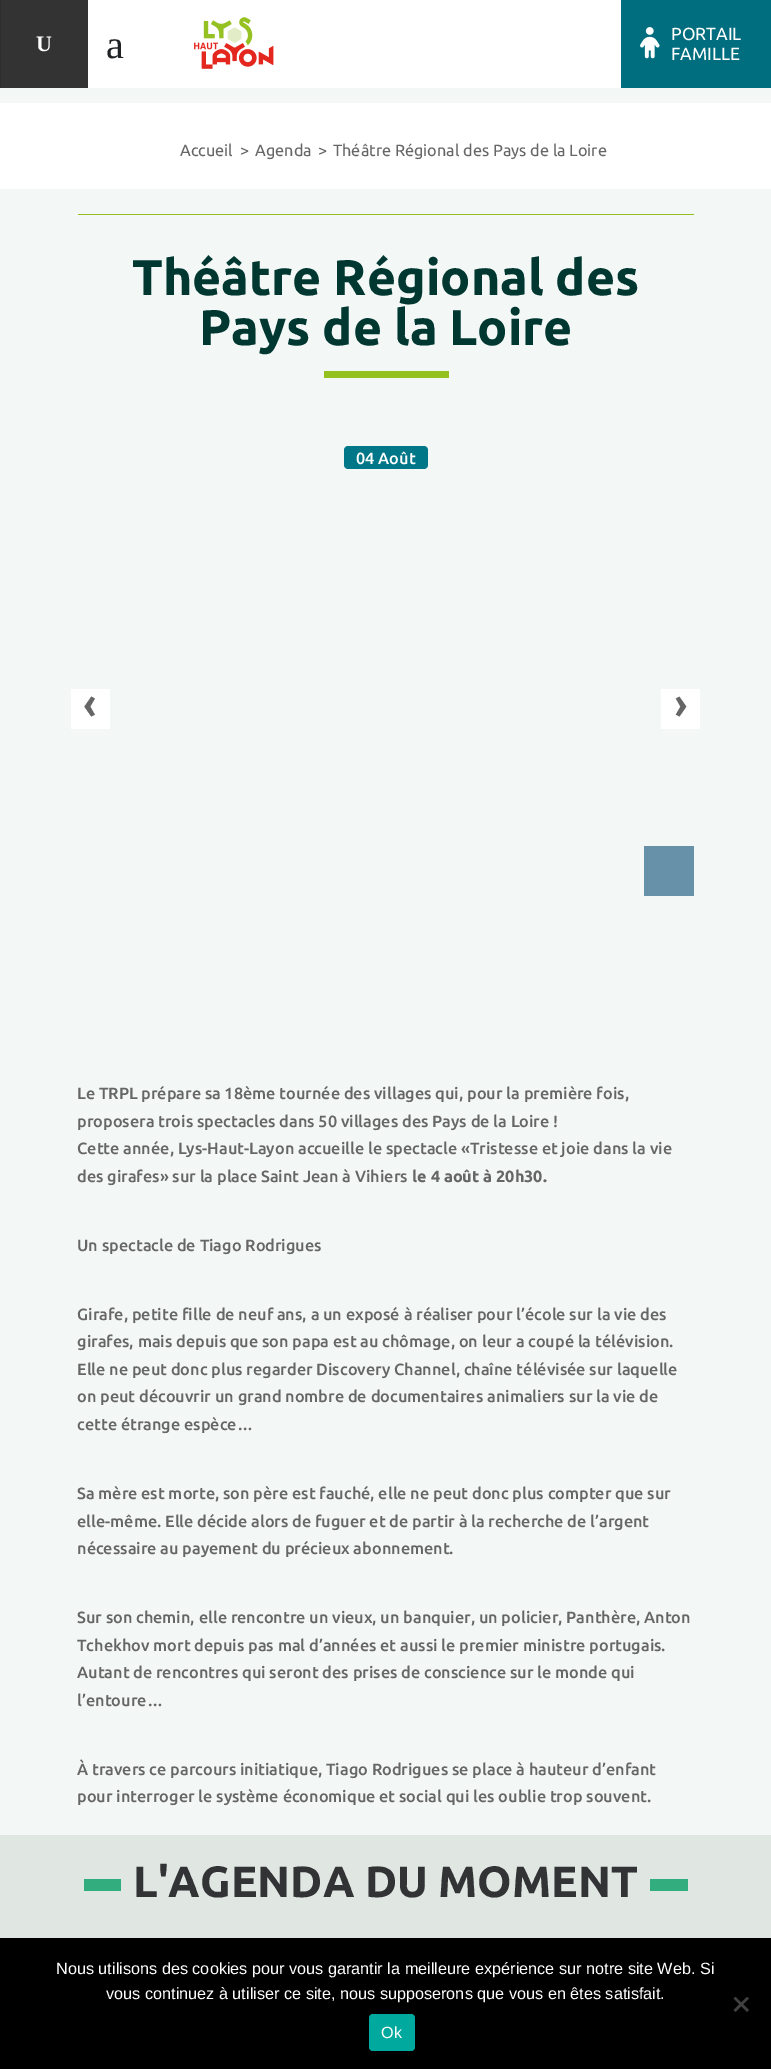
%!PS-Adobe-3.0
%%BoundingBox: 0 0 771 2069
%%LanguageLevel: 3
%%Pages: 1
%%EndComments
%%BeginProlog
/setink { dup -16 bitshift 255 div exch dup -8 bitshift 255 and 255 div exch 255 and 255 div setrgbcolor } def
/usefont { [ exch dup neg 0 0 3 -1 roll 0 0 ] selectfont } def
/rrect { 5 dict begin { /r /h /w /y /x } { exch def } forall
  x r add y moveto x w add y 2 copy h add r arct x w add y h add x 1 index r arct
  x y h add x y r arct x y 2 copy exch w add exch r arct closepath end } def
/drawimage { 5 dict begin { /h /w /y /x /name } { exch def } forall
  gsave x y translate w h scale
  w h 8 [w 0 0 h 0 0] name (r) file false 3 colorimage grestore end } def
%%EndProlog
%%BeginSetup
<< /PageSize [771 2069] >> setpagedevice
%%EndSetup
%%Page: 1 1
0 2069 translate 1 -1 scale
4 setmiterlimit
16#F3F7F6 setink
0 0 771 2069 rectfill
[
    [88 0 533 88 16#FFFFFF]
    [1 0 87 88 16#333334]
    [0 0 1 88 16#2E2E2F]
] { aload pop setink rectfill } forall
/LiberationSerif-Bold 22 usefont
16#FFFFFF setink
36 51 moveto (U) show
/LiberationSerif-Regular 40 usefont
16#1F2325 setink
106 58 moveto (a) show
(img1.raw) 194 17 80 52 drawimage
16#006E7F setink
621 0 150 88 rectfill
(img2.raw) 640 27 20 32 drawimage
/Ubuntu-Regular 17.5 usefont
16#FFFFFF setink
671 40 moveto (PORTAIL) show
671 60 moveto (FAMILLE) show
0 103 771 86 rectfill
/Ubuntu-Regular 16.25 usefont
16#666666 setink
[
    [(Accueil) 180 156]
    [(>) 240 156]
    [(Agenda) 255 156]
    [(>) 318 156]
    [(Théâtre Régional des Pays de la Loire) 333 156]
] { aload pop moveto show } forall
16#95C120 setink
78 214 616 1 rectfill
/Ubuntu-Bold 50 usefont
16#003730 setink
132 295 moveto (Théâtre Régional des) show
199 345 moveto (Pays de la Loire) show
16#95C120 setink
324 371 125 7 rectfill
16#007788 setink
348 446 moveto 375 446 lineto 375 469 lineto 348 469 lineto 346 469 344 467 344 465 curveto 344 450 lineto 344 448 346 446 348 446 curveto closepath fill
375 446 4 23 rectfill
379 446 moveto 424 446 lineto 426 446 428 448 428 450 curveto 428 465 lineto 428 467 426 469 424 469 curveto 379 469 lineto closepath fill
/Ubuntu-Medium 16.25 usefont
16#FFFFFF setink
356 464 moveto (04 Août) show
71 689 39 40 rectfill
/Ubuntu-Medium 43.75 usefont
16#666666 setink
83 719 moveto (‹) show
16#FFFFFF setink
661 689 39 40 rectfill
16#666666 setink
674 719 moveto (›) show
16#6791A8 setink
644 846 50 50 rectfill
/Ubuntu-Medium 16.25 usefont
16#666666 setink
[
    [(Le TRPL prépare sa 18ème tournée des villages qui, pour la première fois,) 77 1099]
    [(proposera trois spectacles dans 50 villages des Pays de la Loire !) 77 1127]
    [(Cette année, Lys-Haut-Layon accueille le spectacle «Tristesse et joie dans la vie) 77 1154]
    [(des girafes» sur la place Saint Jean à Vihiers) 77 1182]
] { aload pop moveto show } forall
/Ubuntu-Bold 16.25 usefont
412 1182 moveto (le 4 août à 20h30.) show
/Ubuntu-Medium 16.25 usefont
[
    [(Un spectacle de Tiago Rodrigues) 77 1251]
    [(Girafe, petite fille de neuf ans, a un exposé à réaliser pour l’école sur la vie des) 77 1320]
    [(girafes, mais depuis que son papa est au chômage, on leur a coupé la télévision.) 77 1347]
    [(Elle ne peut donc plus regarder Discovery Channel, chaîne télévisée sur laquelle) 77 1375]
    [(on peut découvrir un grand nombre de documentaires animaliers sur la vie de) 77 1402]
    [(cette étrange espèce…) 77 1430]
    [(Sa mère est morte, son père est fauché, elle ne peut donc plus compter que sur) 77 1499]
    [(elle-même. Elle décide alors de fuguer et de partir à la recherche de l’argent) 77 1527]
    [(nécessaire au payement du précieux abonnement.) 77 1554]
    [(Sur son chemin, elle rencontre un vieux, un banquier, un policier, Panthère, Anton) 77 1623]
    [(Tchekhov mort depuis pas mal d’années et aussi le premier ministre portugais.) 77 1651]
    [(Autant de rencontres qui seront des prises de conscience sur le monde qui) 77 1678]
    [(l’entoure…) 77 1706]
    [(À travers ce parcours initiatique, Tiago Rodrigues se place à hauteur d’enfant) 77 1775]
    [(pour interroger le système économique et social qui les oublie trop souvent.) 77 1802]
] { aload pop moveto show } forall
16#E0E7E3 setink
0 1835 771 103 rectfill
16#32AD7E setink
84 1879 37 12 rectfill
/Ubuntu-Bold 43.75 usefont
16#323334 setink
133 1897 moveto (L'AGENDA DU MOMENT) show
16#32AD7E setink
650 1879 38 12 rectfill
16#000000 setink
0 1938 771 131 rectfill
/LiberationSans-Regular 16.25 usefont
16#FFFFFF setink
56 1974 moveto (Nous utilisons des cookies pour vous garantir la meilleure expérience sur notre site Web. Si) show
106 1999 moveto (vous continuez à utiliser ce site, nous supposerons que vous en êtes satisfait.) show
16#404040 setink
747 1997 moveto 749 1998.5 lineto 735.5 2012 lineto 733.5 2010 lineto closepath fill
733.5 1998.5 moveto 735.5 1997 lineto 749 2010 lineto 747 2012 lineto closepath fill
16#00A99D setink
369 2014 46 37 4 rrect fill
16#FFFFFF setink
381 2038 moveto (Ok) show
showpage
%%EOF
